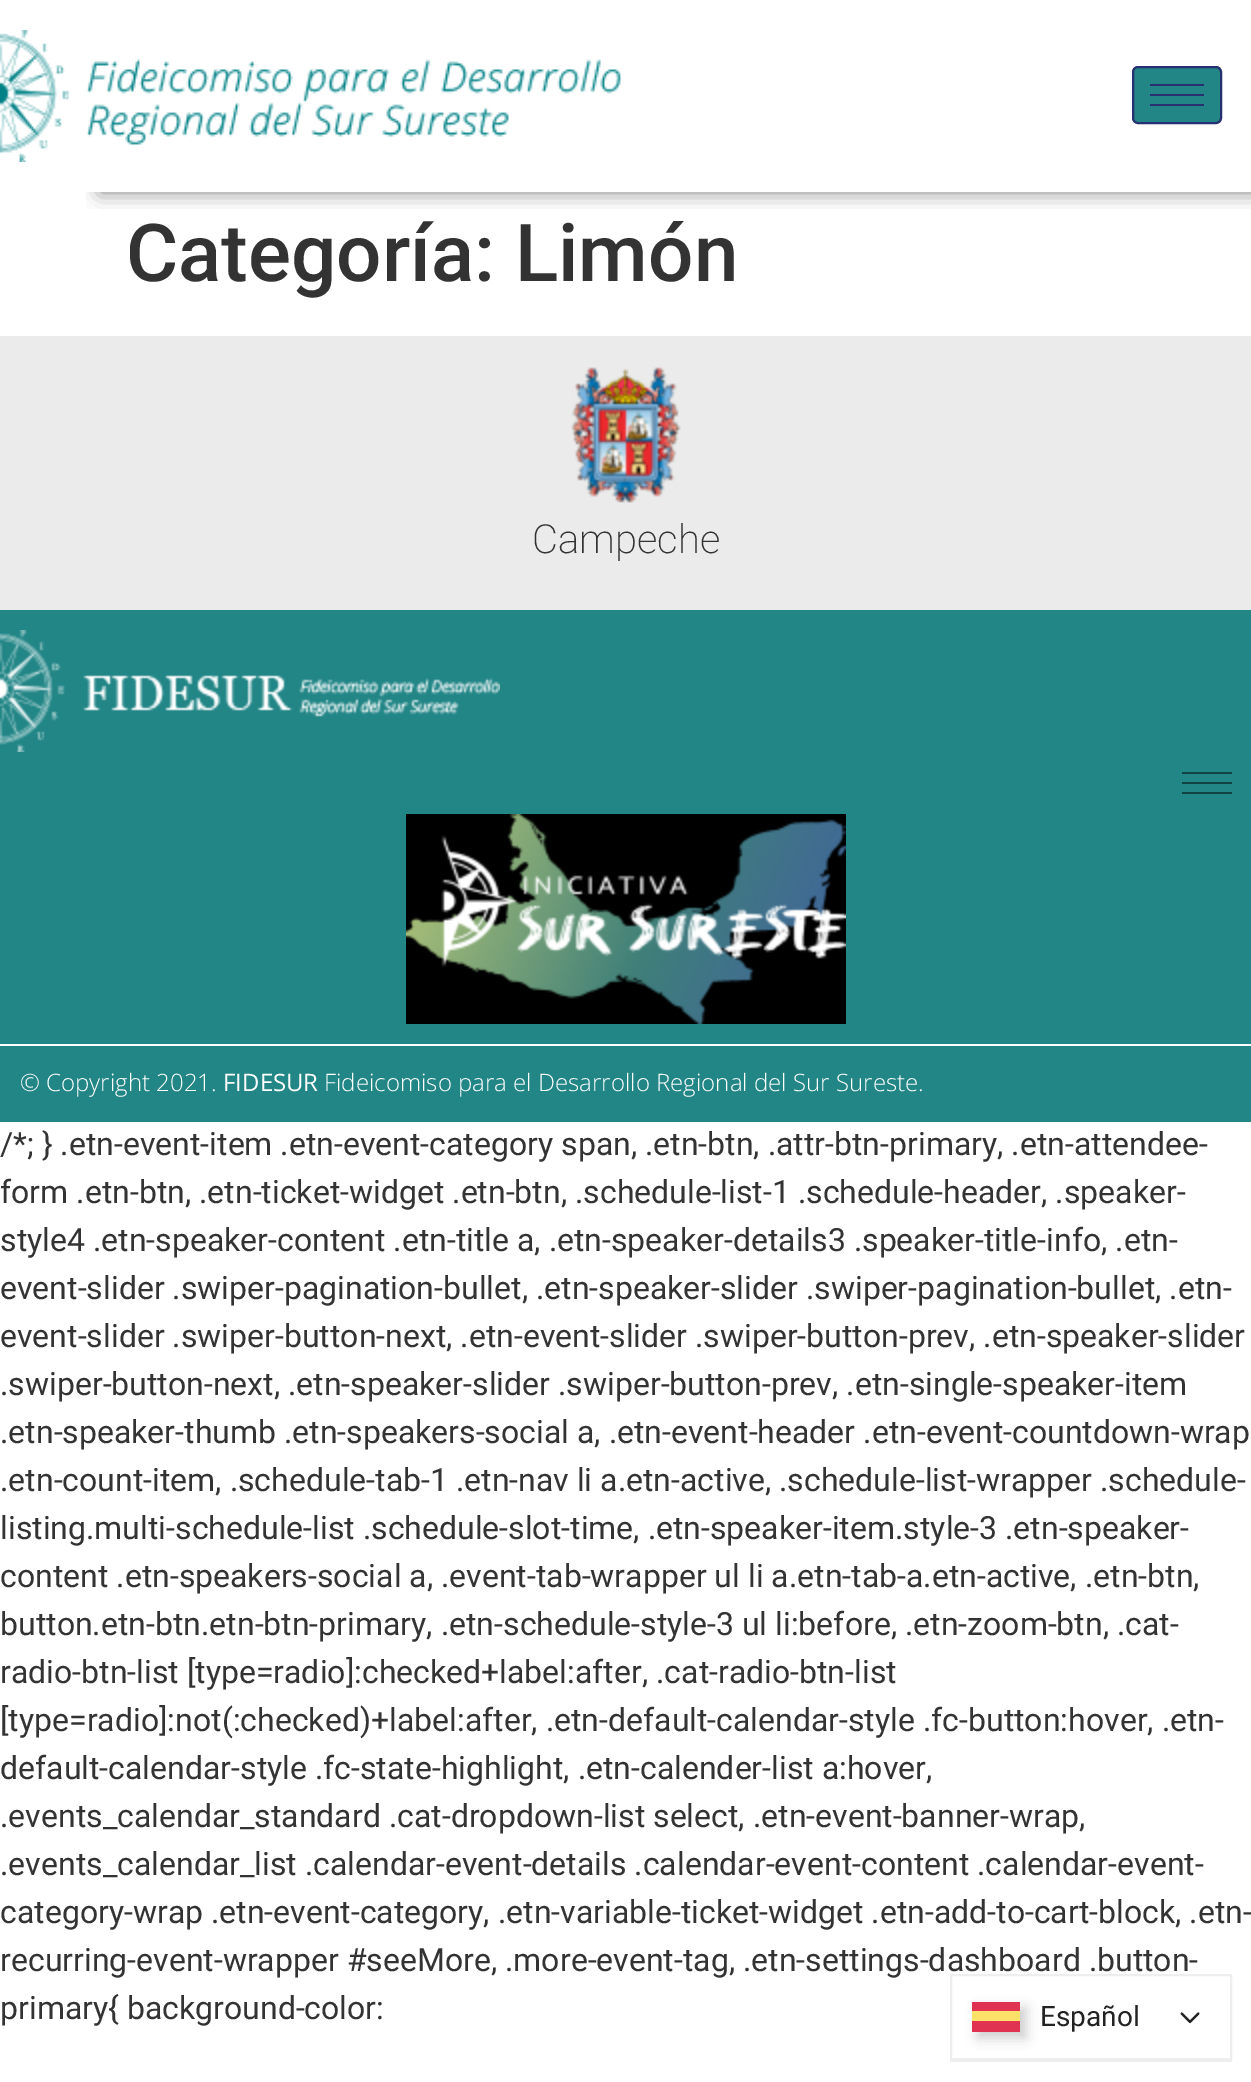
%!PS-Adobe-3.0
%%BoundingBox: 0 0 1251 2082
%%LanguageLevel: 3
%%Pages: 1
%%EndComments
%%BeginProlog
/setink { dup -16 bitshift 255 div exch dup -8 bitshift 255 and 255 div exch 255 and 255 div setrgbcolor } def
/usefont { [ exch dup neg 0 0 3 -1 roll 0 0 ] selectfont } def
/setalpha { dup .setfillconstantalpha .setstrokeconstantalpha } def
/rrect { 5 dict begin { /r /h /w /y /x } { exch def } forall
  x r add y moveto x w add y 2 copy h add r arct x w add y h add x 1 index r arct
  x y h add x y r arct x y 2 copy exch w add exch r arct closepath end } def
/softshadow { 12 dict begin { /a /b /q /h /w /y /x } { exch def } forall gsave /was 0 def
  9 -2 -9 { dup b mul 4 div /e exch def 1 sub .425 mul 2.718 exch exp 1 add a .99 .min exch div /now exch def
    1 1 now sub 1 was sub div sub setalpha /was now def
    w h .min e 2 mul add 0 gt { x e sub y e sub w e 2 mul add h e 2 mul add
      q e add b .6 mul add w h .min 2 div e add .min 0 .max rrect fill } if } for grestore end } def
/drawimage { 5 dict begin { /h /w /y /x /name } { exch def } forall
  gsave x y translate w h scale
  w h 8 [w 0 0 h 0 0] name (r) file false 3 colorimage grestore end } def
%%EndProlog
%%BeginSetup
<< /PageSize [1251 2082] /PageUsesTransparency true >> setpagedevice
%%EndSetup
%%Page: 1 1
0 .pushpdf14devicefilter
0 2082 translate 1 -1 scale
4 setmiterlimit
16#FFFFFF setink
0 0 1251 2082 rectfill
gsave
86 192 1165 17 rectclip
16#000000 setink
100 0 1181 192 0 10 0.5 softshadow
grestore
(img1.raw) 0 30 622 132 drawimage
16#228586 setink
1133 67 88 56 5 rrect gsave fill grestore
16#273070 setink
2 setlinewidth
stroke
[
    [1150 84 54 2 16#273070]
    [1150 94 54 2 16#273070]
    [1150 104 54 2 16#273070]
] { aload pop setink rectfill } forall
/Roboto-Medium 80 usefont
16#333333 setink
126 281 moveto (Categoría: Limón) show
16#EBEBEB setink
0 336 1251 274 rectfill
(img2.raw) 571 367 110 136 drawimage
/Roboto-ExtraLight 40 usefont
16#333333 setink
532 553 moveto (Campeche) show
16#228586 setink
0 610 1251 434 rectfill
(img3.raw) 0 630 500 122 drawimage
[
    [1182 772 50 2 16#114343]
    [1182 782 50 2 16#114343]
    [1182 792 50 2 16#114343]
] { aload pop setink rectfill } forall
(img4.raw) 406 814 440 210 drawimage
16#228586 setink
0 1046 1251 76 rectfill
/OpenSans-Light 24 usefont
16#FFFFFF setink
20 1091 moveto (© Copyright 2021.) show
/OpenSans-Regular 24 usefont
223 1091 moveto (FIDESUR) show
/OpenSans-Light 24 usefont
324 1091 moveto (Fideicomiso para el Desarrollo Regional del Sur Sureste.) show
/Roboto-Regular 32 usefont
16#333333 setink
[
    [(/*; } .etn-event-item .etn-event-category span, .etn-btn, .attr-btn-primary, .etn-attendee-) 0 1155]
    [(form .etn-btn, .etn-ticket-widget .etn-btn, .schedule-list-1 .schedule-header, .speaker-) 0 1203]
    [(style4 .etn-speaker-content .etn-title a, .etn-speaker-details3 .speaker-title-info, .etn-) 0 1251]
    [(event-slider .swiper-pagination-bullet, .etn-speaker-slider .swiper-pagination-bullet, .etn-) 0 1299]
    [(event-slider .swiper-button-next, .etn-event-slider .swiper-button-prev, .etn-speaker-slider) 0 1347]
    [(.swiper-button-next, .etn-speaker-slider .swiper-button-prev, .etn-single-speaker-item) 0 1395]
    [(.etn-speaker-thumb .etn-speakers-social a, .etn-event-header .etn-event-countdown-wrap) 0 1443]
    [(.etn-count-item, .schedule-tab-1 .etn-nav li a.etn-active, .schedule-list-wrapper .schedule-) 0 1491]
    [(listing.multi-schedule-list .schedule-slot-time, .etn-speaker-item.style-3 .etn-speaker-) 0 1539]
    [(content .etn-speakers-social a, .event-tab-wrapper ul li a.etn-tab-a.etn-active, .etn-btn,) 0 1587]
    [(button.etn-btn.etn-btn-primary, .etn-schedule-style-3 ul li:before, .etn-zoom-btn, .cat-) 0 1635]
    [(radio-btn-list [type=radio]:checked+label:after, .cat-radio-btn-list) 0 1683]
    [([type=radio]:not\(:checked\)+label:after, .etn-default-calendar-style .fc-button:hover, .etn-) 0 1731]
    [(default-calendar-style .fc-state-highlight, .etn-calender-list a:hover,) 0 1779]
    [(.events_calendar_standard .cat-dropdown-list select, .etn-event-banner-wrap,) 0 1827]
    [(.events_calendar_list .calendar-event-details .calendar-event-content .calendar-event-) 0 1875]
    [(category-wrap .etn-event-category, .etn-variable-ticket-widget .etn-add-to-cart-block, .etn-) 0 1923]
    [(recurring-event-wrapper #seeMore, .more-event-tag, .etn-settings-dashboard .button-) 0 1971]
    [(primary{ background-color:) 0 2019]
] { aload pop moveto show } forall
16#EEEEEE setink
950 2060 282 2 rectfill
951 1975 280 84 rectstroke
16#CCCCCC setink
978 2008 48 30 0 6 1 softshadow
[
    [972 2011 48 10 16#FFE169]
    [972 2002 48 9 16#E03352]
    [972 2021 48 11 16#E03352]
] { aload pop setink rectfill } forall
/Roboto-Regular 28 usefont
16#222222 setink
1040 2026 moveto (Español) show
(img5.raw) 1180 2012 20 12 drawimage
.poppdf14devicefilter showpage
%%EOF
